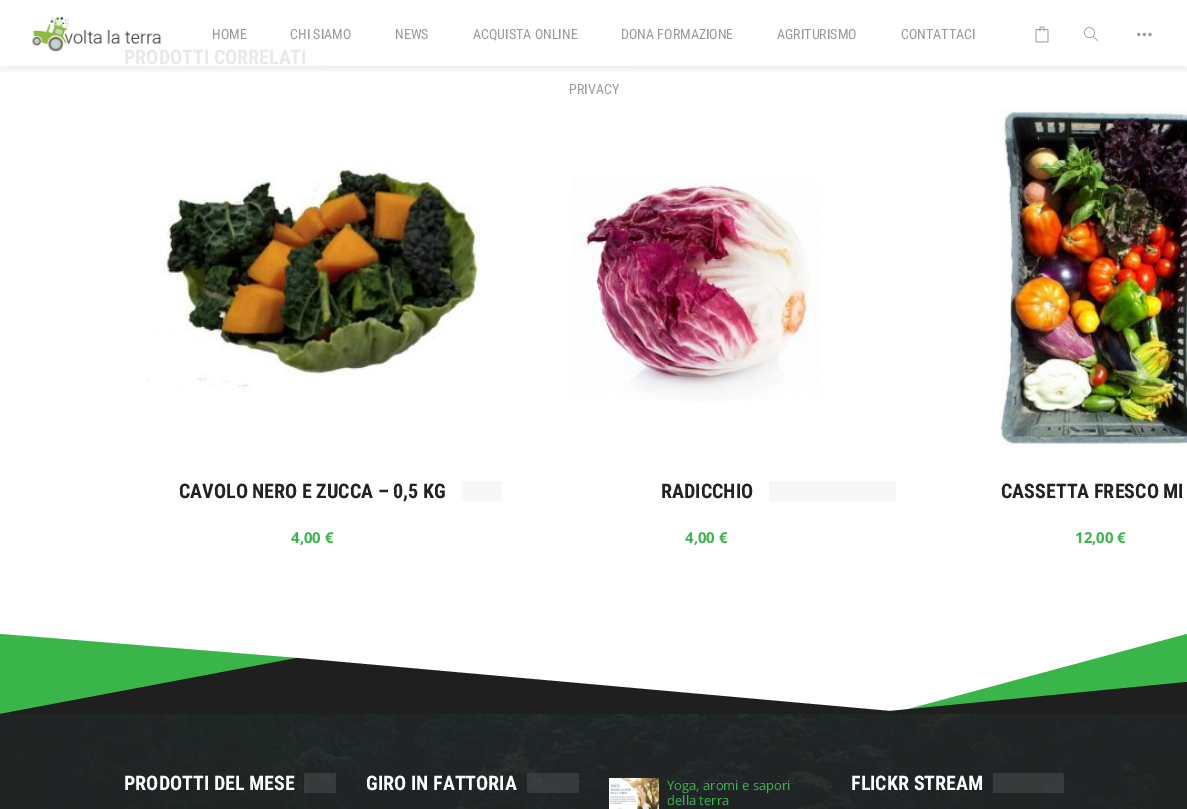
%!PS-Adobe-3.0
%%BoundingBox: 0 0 1187 809
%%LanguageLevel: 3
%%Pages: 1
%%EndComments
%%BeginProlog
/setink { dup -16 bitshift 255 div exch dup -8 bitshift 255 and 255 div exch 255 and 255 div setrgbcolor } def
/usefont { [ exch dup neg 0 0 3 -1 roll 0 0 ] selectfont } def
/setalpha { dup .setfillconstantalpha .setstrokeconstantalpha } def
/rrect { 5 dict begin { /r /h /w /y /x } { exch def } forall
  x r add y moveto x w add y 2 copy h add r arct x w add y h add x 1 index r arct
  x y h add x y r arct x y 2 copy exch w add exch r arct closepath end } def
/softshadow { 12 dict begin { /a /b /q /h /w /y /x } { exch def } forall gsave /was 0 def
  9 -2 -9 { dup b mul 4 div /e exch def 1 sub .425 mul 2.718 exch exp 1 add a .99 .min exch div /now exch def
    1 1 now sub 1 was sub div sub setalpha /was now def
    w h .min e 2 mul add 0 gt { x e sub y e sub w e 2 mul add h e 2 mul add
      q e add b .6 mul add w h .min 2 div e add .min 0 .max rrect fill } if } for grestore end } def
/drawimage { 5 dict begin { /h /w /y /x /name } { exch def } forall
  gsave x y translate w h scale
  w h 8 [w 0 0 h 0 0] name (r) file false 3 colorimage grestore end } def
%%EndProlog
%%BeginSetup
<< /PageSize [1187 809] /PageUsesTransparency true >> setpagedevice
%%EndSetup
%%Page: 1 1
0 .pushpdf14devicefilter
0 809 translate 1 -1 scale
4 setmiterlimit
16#FFFFFF setink
0 0 1187 809 rectfill
16#F7F7F7 setink
322 66 311 1 rectfill
gsave
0 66 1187 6 rectclip
16#000000 setink
0 5 1187 66 0 2.5 0.05 softshadow
grestore
/RobotoCondensed-Bold 20 usefont
16#E9E9E9 setink
124 64 moveto (PRODOTTI CORRELATI) show
(img1.raw) 31 16 130 35 drawimage
/RobotoCondensed-Regular 14 usefont
16#999999 setink
[
    [(HOME) 212 39]
    [(CHI SIAMO) 290 39]
    [(NEWS) 395 39]
    [(ACQUISTA ONLINE) 473 39]
    [(DONA FORMAZIONE) 621 39]
    [(AGRITURISMO) 777 39]
    [(CONTATTACI) 901 39]
    [(PRIVACY) 569 94]
] { aload pop moveto show } forall
(img2.raw) 1035 26 14 17 drawimage
(img3.raw) 1084 27 14 15 drawimage
(img4.raw) 1137 32 15 5 drawimage
(img5.raw) 147 161 333 231 drawimage
/RobotoCondensed-Bold 20 usefont
16#222222 setink
179 498 moveto (CAVOLO NERO E ZUCCA – 0,5 KG) show
16#F7F7F7 setink
462 481 40 20 rectfill
/OpenSans-Bold 15 usefont
16#3AB54A setink
291 543 moveto (4,00 €) show
(img6.raw) 572 178 248 223 drawimage
/RobotoCondensed-Bold 20 usefont
16#222222 setink
661 498 moveto (RADICCHIO) show
16#F7F7F7 setink
769 481 127 20 rectfill
/OpenSans-Bold 15 usefont
16#3AB54A setink
685 543 moveto (4,00 €) show
(img7.raw) 1000 108 187 338 drawimage
/RobotoCondensed-Bold 20 usefont
16#222222 setink
1001 498 moveto (CASSETTA FRESCO MI) show
/OpenSans-Bold 15 usefont
16#3AB54A setink
1075 543 moveto (12,00 €) show
0 634 moveto 297 658 lineto 297 714 lineto 0 714 lineto closepath fill
1187 634 moveto 1187 714 lineto 890 714 lineto closepath fill
16#1F1F1F setink
0 714 moveto 297 658 lineto 890 711 lineto 1187 682 lineto 1187 714 lineto closepath fill
(img8.raw) 0 714 1187 95 drawimage
/RobotoCondensed-Bold 20 usefont
16#FFFFFF setink
124 790 moveto (PRODOTTI DEL MESE) show
0.1 setalpha
304 773 32 20 rectfill
1 setalpha
366 790 moveto (GIRO IN FATTORIA) show
0.1 setalpha
527 773 52 20 rectfill
1 setalpha
(img9.raw) 609 778 50 31 drawimage
/OpenSans-Regular 13 usefont
16#3AB54A setink
667 790 moveto (Yoga, aromi e sapori) show
667 805 moveto (della terra) show
/RobotoCondensed-Bold 20 usefont
16#FFFFFF setink
851 790 moveto (FLICKR STREAM) show
0.1 setalpha
993 773 71 20 rectfill
.poppdf14devicefilter showpage
%%EOF
